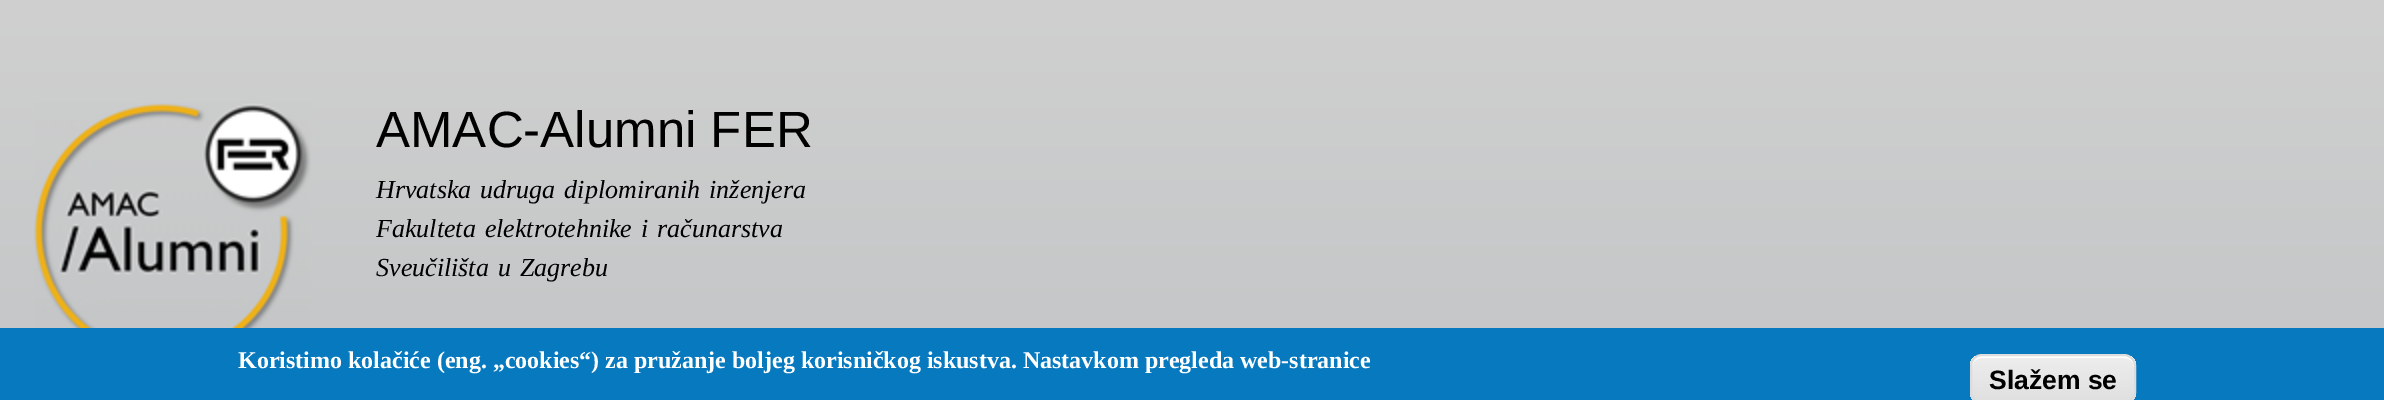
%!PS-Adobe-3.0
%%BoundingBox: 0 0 2384 400
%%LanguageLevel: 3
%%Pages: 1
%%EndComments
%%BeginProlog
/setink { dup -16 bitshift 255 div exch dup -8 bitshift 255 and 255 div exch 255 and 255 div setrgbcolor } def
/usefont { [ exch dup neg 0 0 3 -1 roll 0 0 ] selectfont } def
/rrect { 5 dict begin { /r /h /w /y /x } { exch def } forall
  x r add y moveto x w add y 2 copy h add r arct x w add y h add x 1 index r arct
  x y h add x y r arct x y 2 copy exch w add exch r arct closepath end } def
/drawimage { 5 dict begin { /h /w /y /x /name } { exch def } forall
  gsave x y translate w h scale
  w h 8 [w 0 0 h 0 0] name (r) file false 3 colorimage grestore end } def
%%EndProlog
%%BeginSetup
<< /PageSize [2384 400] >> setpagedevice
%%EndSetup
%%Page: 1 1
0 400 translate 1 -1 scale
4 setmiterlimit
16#FFFFFF setink
0 0 2384 400 rectfill
gsave 0 0 moveto 2384 0 lineto 2384 328 lineto 0 328 lineto closepath clip newpath
<< /ShadingType 2 /ColorSpace /DeviceRGB /Coords [1192 0 1192 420] /Extend [true true] /Function << /FunctionType 2 /Domain [0 1] /C0 [0.816 0.816 0.816] /C1 [0.761 0.769 0.773] /N 1 >> >> shfill grestore
(img1.raw) 34 102 277 226 drawimage
/LiberationSans-Regular 51 usefont
16#000000 setink
376 147 moveto (AMAC-Alumni FER) show
/LiberationSerif-Italic 26 usefont
376 198 moveto 2.5 0 32 (Hrvatska udruga diplomiranih inženjera) widthshow
376 237 moveto 2.5 0 32 (Fakulteta elektrotehnike i računarstva) widthshow
376 276 moveto 2.5 0 32 (Sveučilišta u Zagrebu) widthshow
16#0779BF setink
0 328 2384 72 rectfill
/LiberationSerif-Bold 24 usefont
16#FFFFFF setink
238 368 moveto (Koristimo kolačiće \(eng. „cookies“\) za pružanje boljeg korisničkog iskustva. Nastavkom pregleda web-stranice) show
gsave
1970 354 166 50 12 rrect clip newpath
gsave 1970 356 moveto 2136 356 lineto 2136 400 lineto 1970 400 lineto closepath clip newpath
<< /ShadingType 2 /ColorSpace /DeviceRGB /Coords [2053 356 2053 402] /Extend [true true] /Function << /FunctionType 3 /Domain [0 1] /Functions [<< /FunctionType 2 /Domain [0 1] /C0 [0.929 0.929 0.929] /C1 [0.929 0.929 0.929] /N 1 >> << /FunctionType 2 /Domain [0 1] /C0 [0.929 0.929 0.929] /C1 [0.875 0.875 0.875] /N 1 >>] /Bounds [0.05] /Encode [0 1 0 1] >> >> shfill grestore
grestore
1982 358 moveto 2124 358 lineto 2130 358 2134 362 2134 368 curveto 2134 366 lineto 2134 360 2130 356 2124 356 curveto 1982 356 lineto 1976 356 1972 360 1972 366 curveto 1972 368 lineto 1972 362 1976 358 1982 358 curveto closepath fill
16#DCDCDC setink
2 setlinewidth
1971 355 164 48 11 rrect stroke
/LiberationSans-Bold 26.5 usefont
16#000000 setink
1989 389 moveto (Slažem se) show
showpage
%%EOF
